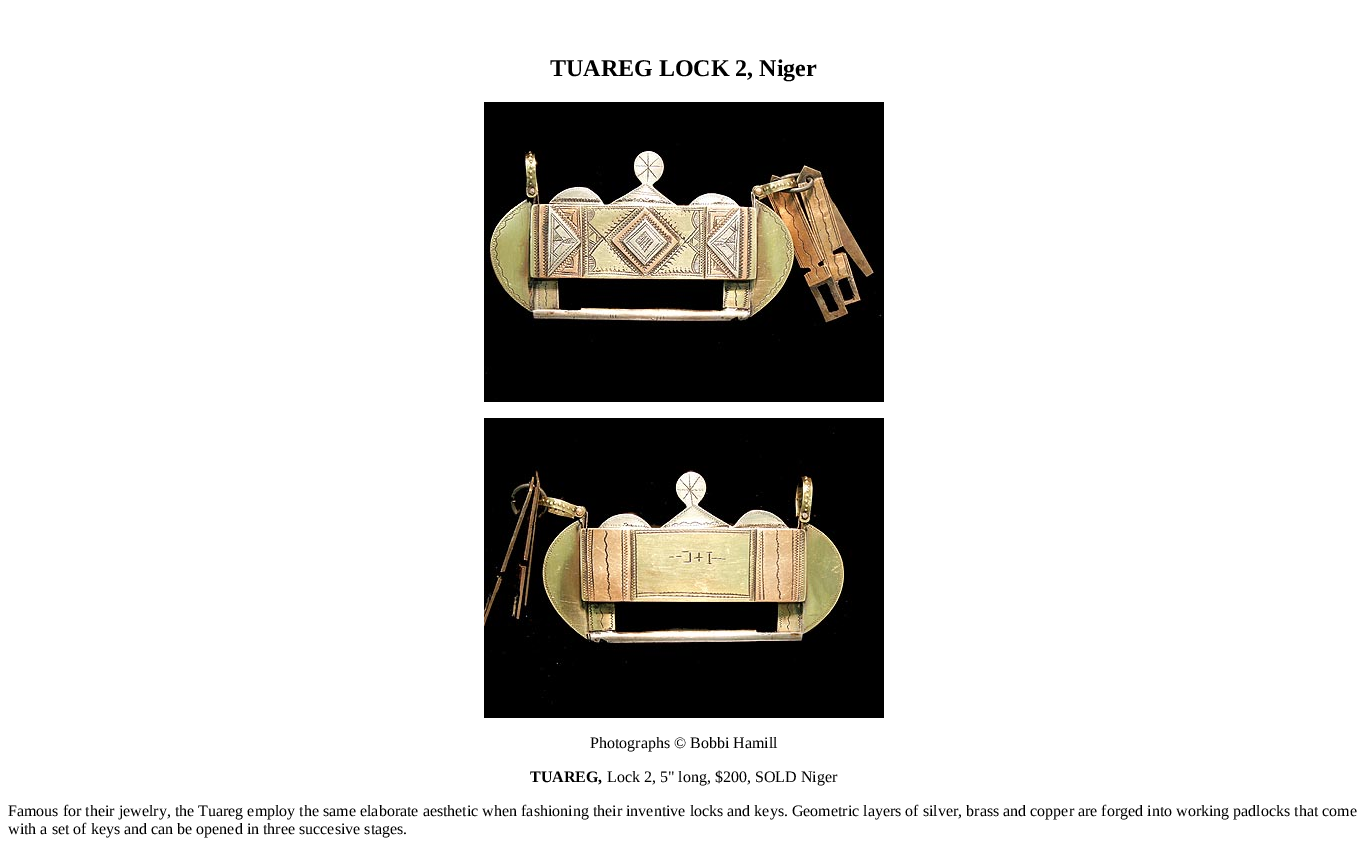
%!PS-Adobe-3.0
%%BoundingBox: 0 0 1367 859
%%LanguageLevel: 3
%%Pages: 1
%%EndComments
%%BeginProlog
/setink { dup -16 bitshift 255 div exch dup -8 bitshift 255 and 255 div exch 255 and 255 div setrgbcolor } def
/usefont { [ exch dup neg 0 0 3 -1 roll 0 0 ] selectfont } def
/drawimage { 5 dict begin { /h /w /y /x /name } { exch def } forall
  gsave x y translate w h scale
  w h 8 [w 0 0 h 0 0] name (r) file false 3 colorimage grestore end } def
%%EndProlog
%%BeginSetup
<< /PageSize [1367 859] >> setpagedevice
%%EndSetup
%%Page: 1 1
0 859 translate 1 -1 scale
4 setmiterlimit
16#FFFFFF setink
0 0 1367 859 rectfill
/LiberationSerif-Bold 24 usefont
16#000000 setink
550 76 moveto (TUAREG LOCK 2, Niger) show
(img1.raw) 484 102 400 300 drawimage
(img2.raw) 484 418 400 300 drawimage
/LiberationSerif-Regular 16 usefont
590 748 moveto (Photographs © Bobbi Hamill) show
/LiberationSerif-Bold 16 usefont
530 782 moveto (TUAREG,) show
/LiberationSerif-Regular 16 usefont
[
    [(Lock 2, 5" long, $200, SOLD Niger) 607 782]
    [(Famous for their jewelry, the Tuareg employ the same elaborate aesthetic when fashioning their inventive locks and keys. Geometric layers of silver, brass and copper are forged into working padlocks that come) 8 816]
    [(with a set of keys and can be opened in three succesive stages.) 8 834]
] { aload pop moveto show } forall
showpage
%%EOF
